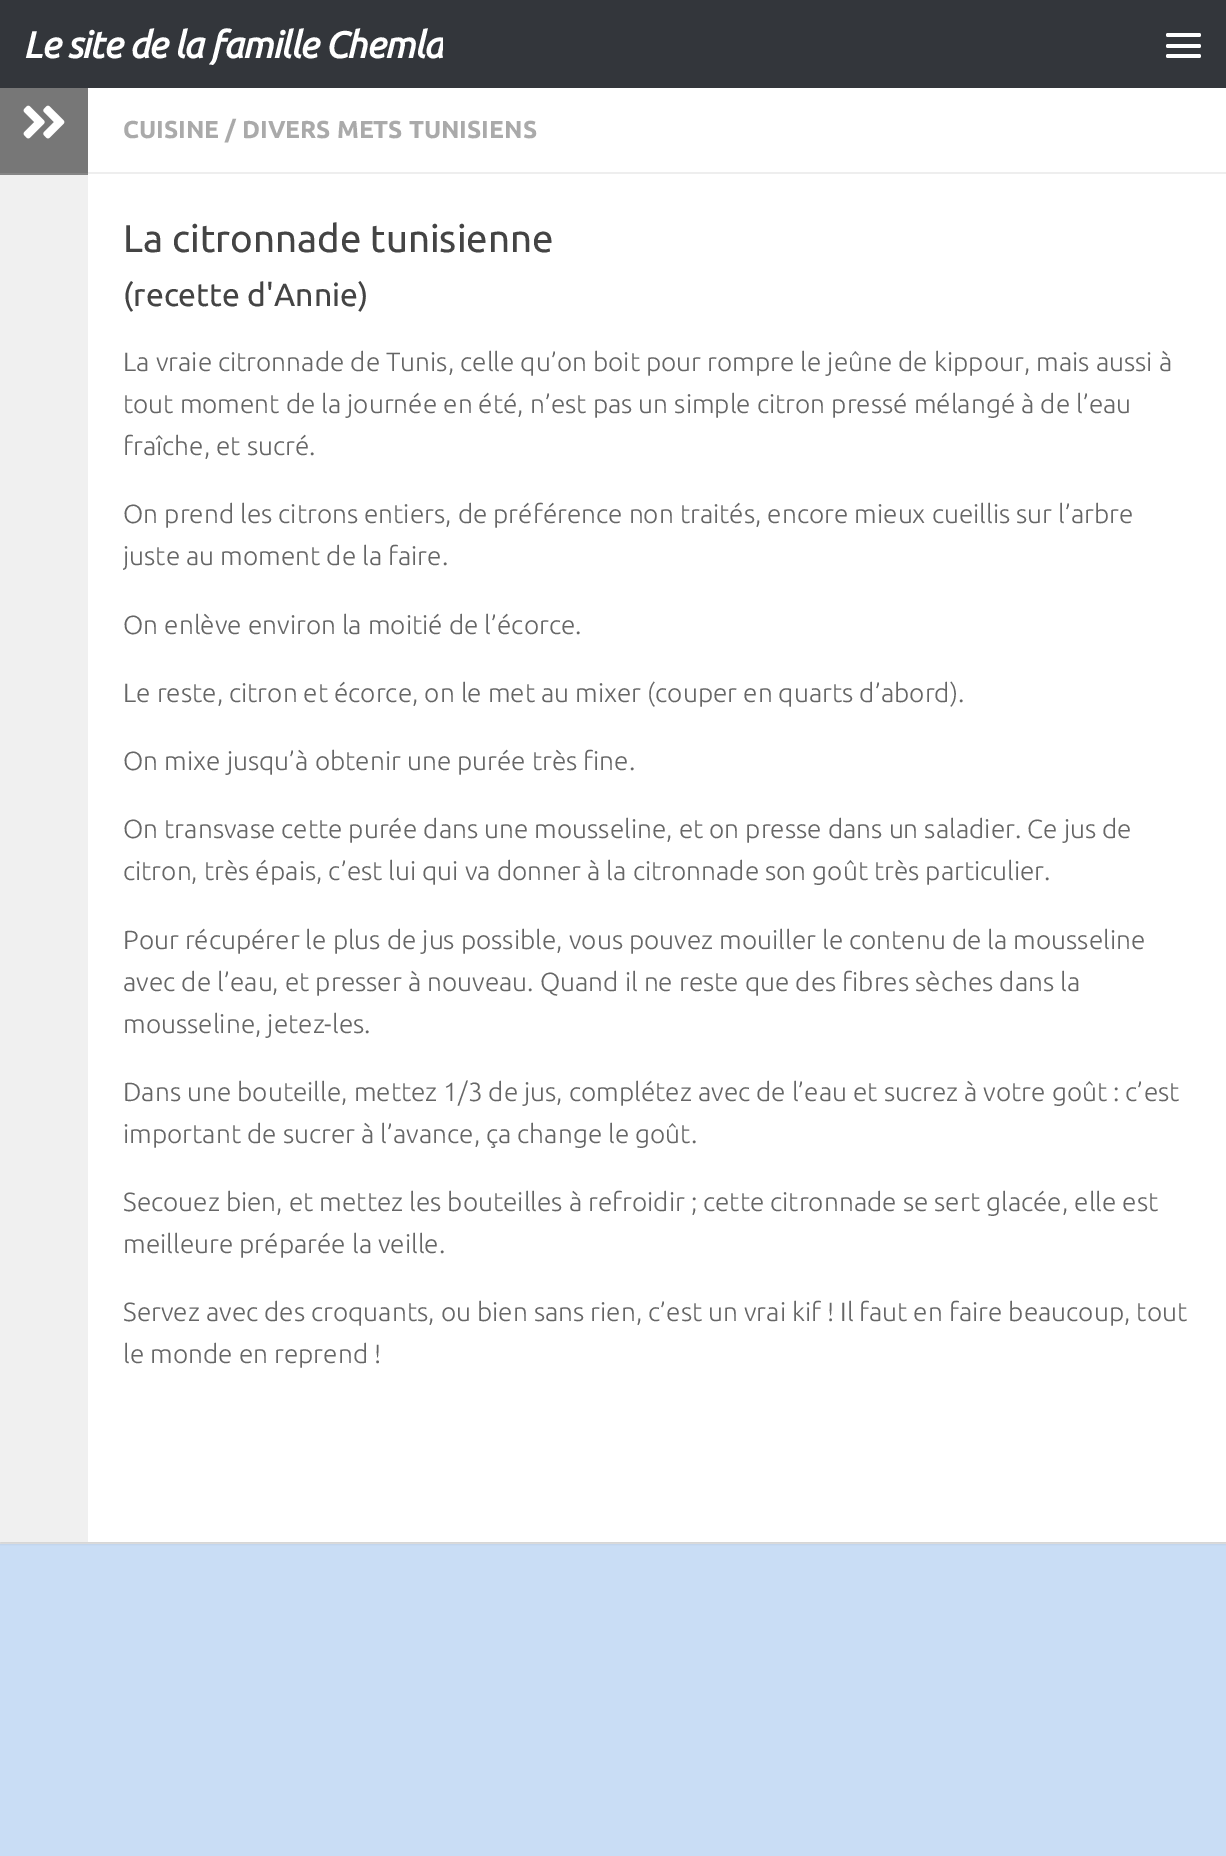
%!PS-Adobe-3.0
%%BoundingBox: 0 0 1226 1856
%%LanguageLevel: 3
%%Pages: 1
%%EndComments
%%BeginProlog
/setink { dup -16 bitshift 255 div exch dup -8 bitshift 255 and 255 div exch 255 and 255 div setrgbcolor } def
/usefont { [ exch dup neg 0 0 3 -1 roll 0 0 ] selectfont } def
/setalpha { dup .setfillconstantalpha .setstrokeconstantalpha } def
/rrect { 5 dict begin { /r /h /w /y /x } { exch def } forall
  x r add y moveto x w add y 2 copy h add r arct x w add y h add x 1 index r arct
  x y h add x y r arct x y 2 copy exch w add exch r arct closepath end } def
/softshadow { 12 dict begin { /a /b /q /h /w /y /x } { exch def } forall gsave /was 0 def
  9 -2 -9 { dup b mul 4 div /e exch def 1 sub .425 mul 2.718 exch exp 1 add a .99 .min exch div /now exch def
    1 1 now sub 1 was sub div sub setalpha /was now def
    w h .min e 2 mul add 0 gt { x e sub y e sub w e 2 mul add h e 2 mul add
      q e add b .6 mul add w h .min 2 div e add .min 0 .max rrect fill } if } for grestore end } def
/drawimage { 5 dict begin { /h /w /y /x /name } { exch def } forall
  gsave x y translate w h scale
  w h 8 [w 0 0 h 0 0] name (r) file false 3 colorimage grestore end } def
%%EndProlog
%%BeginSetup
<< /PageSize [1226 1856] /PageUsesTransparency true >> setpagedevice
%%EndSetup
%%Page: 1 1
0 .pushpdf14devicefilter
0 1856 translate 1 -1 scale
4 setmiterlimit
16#C9DDF5 setink
0 0 1226 1856 rectfill
16#EAEAEA setink
0 1542 1226 2 rectfill
16#000000 setink
0 89 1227 1455 0 1 0.1 softshadow
16#33363B setink
0 0 1226 88 rectfill
gsave
23 0 420 88 rectclip
/Ubuntu-BoldItalic 37 usefont
16#FFFFFF setink
23 58 moveto -0.9 0 (Le site de la famille Chemla) ashow
grestore
16#FFFFFF setink
1166 33 35 4 2 rrect fill
1166 44 35 4 2 rrect fill
1166 54 35 4 2 rrect fill
[
    [88 88 1138 1454 16#FFFFFF]
    [0 175 88 1367 16#F0F0F0]
    [0 88 88 85 16#777777]
    [0 173 88 2 16#858585]
] { aload pop setink rectfill } forall
(img1.raw) 23 105 42 34 drawimage
16#EEEEEE setink
88 172 1138 2 rectfill
/Ubuntu-Bold 24.5 usefont
16#AAAAAA setink
123 138 moveto (CUISINE / DIVERS METS TUNISIENS) show
/Ubuntu-Regular 38.5 usefont
16#444444 setink
123 252 moveto (La citronnade tunisienne) show
/Ubuntu-Regular 32 usefont
123 306 moveto (\(recette d'Annie\)) show
/Ubuntu-Light 26.25 usefont
16#666666 setink
[
    [(La vraie citronnade de Tunis, celle qu’on boit pour rompre le jeûne de kippour, mais aussi à) 123 371]
    [(tout moment de la journée en été, n’est pas un simple citron pressé mélangé à de l’eau) 123 413]
    [(fraîche, et sucré.) 123 455]
    [(On prend les citrons entiers, de préférence non traités, encore mieux cueillis sur l’arbre) 123 523]
] { aload pop moveto show } forall
gsave
123 208 1069 1246 rectclip
123 565 moveto (juste au moment de la faire.) show
grestore
[
    [(On enlève environ la moitié de l’écorce.) 123 634]
    [(Le reste, citron et écorce, on le met au mixer \(couper en quarts d’abord\).) 123 702]
    [(On mixe jusqu’à obtenir une purée très fine.) 123 770]
    [(On transvase cette purée dans une mousseline, et on presse dans un saladier. Ce jus de) 123 838]
    [(citron, très épais, c’est lui qui va donner à la citronnade son goût très particulier.) 123 880]
    [(Pour récupérer le plus de jus possible, vous pouvez mouiller le contenu de la mousseline) 123 949]
    [(avec de l’eau, et presser à nouveau. Quand il ne reste que des fibres sèches dans la) 123 991]
    [(mousseline, jetez-les.) 123 1033]
    [(Dans une bouteille, mettez 1/3 de jus, complétez avec de l’eau et sucrez à votre goût : c’est) 123 1101]
    [(important de sucrer à l’avance, ça change le goût.) 123 1143]
    [(Secouez bien, et mettez les bouteilles à refroidir ; cette citronnade se sert glacée, elle est) 123 1211]
    [(meilleure préparée la veille.) 123 1253]
    [(Servez avec des croquants, ou bien sans rien, c’est un vrai kif ! Il faut en faire beaucoup, tout) 123 1321]
    [(le monde en reprend !) 123 1363]
] { aload pop moveto show } forall
.poppdf14devicefilter showpage
%%EOF
